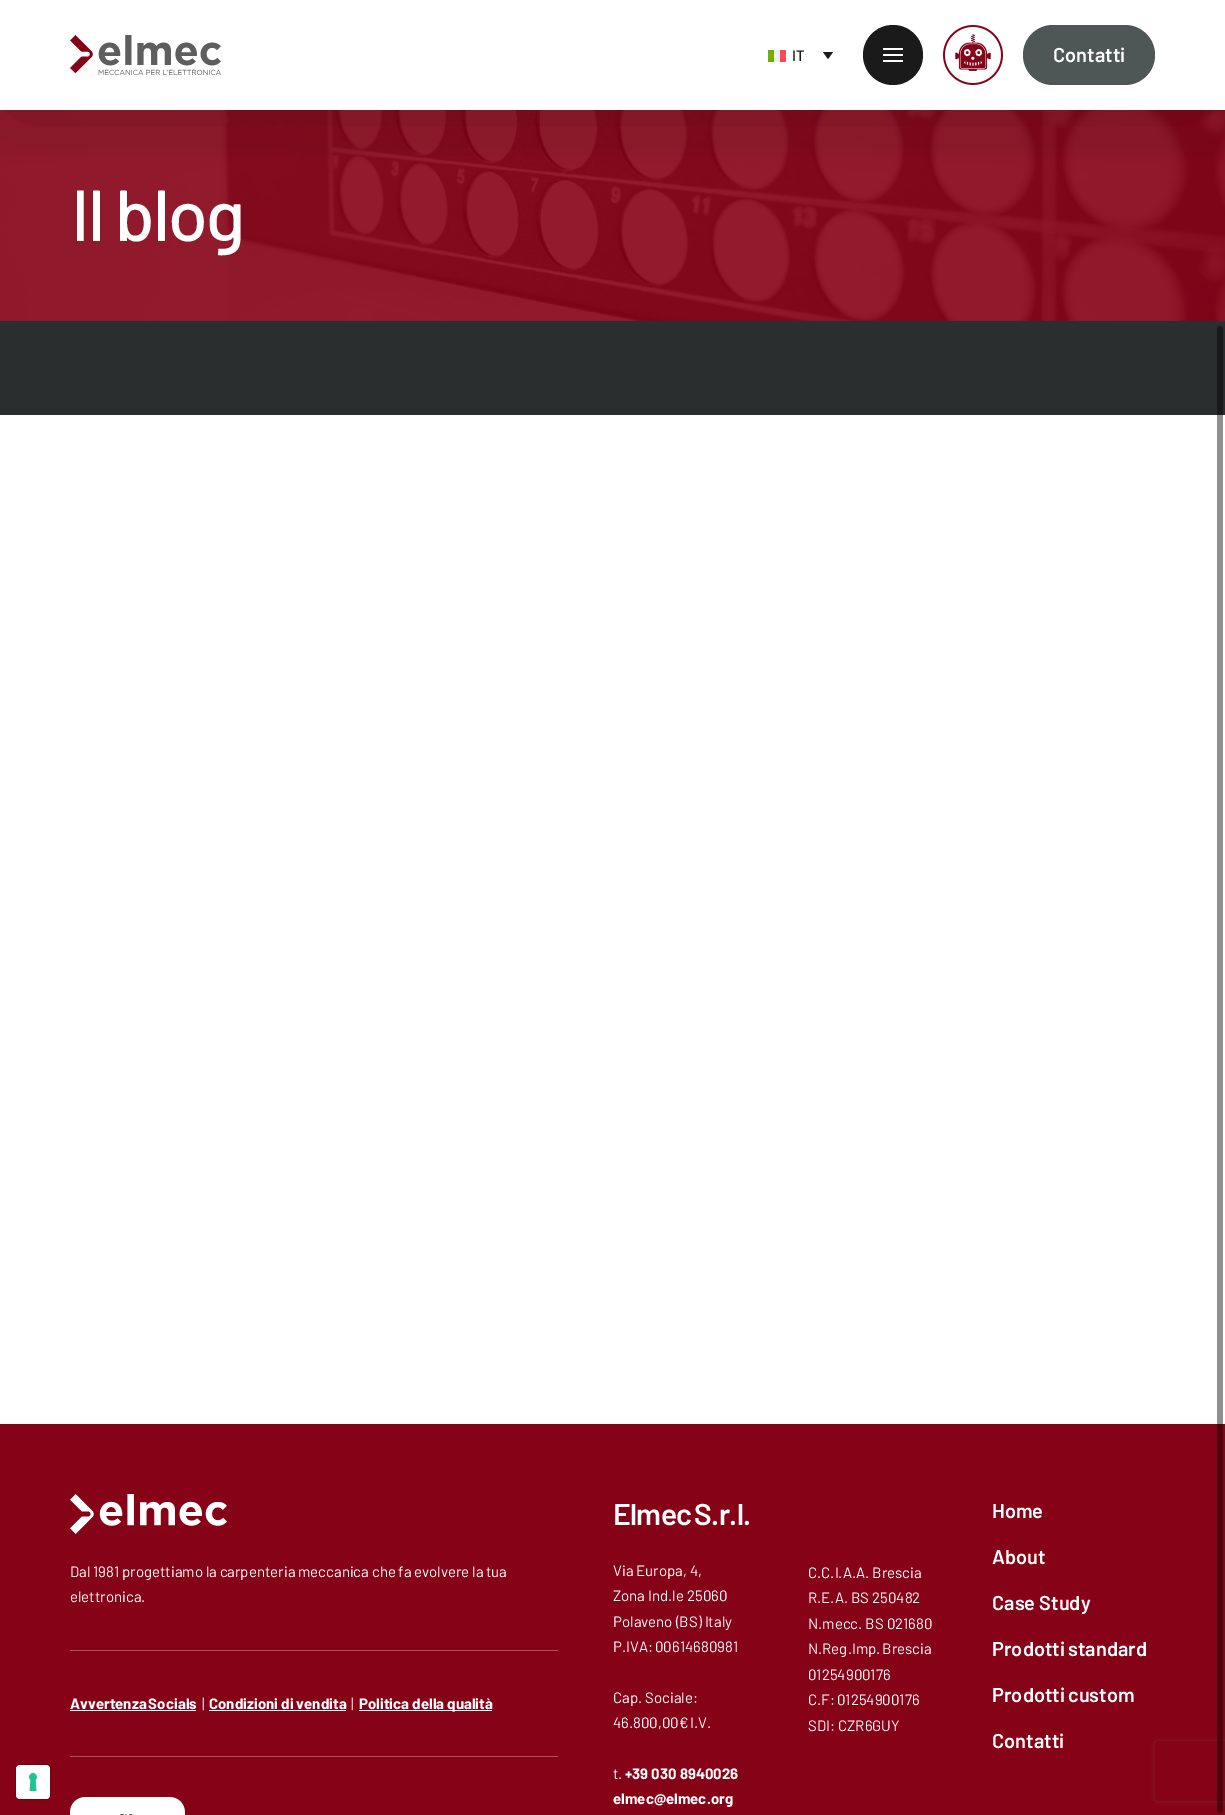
%!PS-Adobe-3.0
%%BoundingBox: 0 0 1225 1815
%%LanguageLevel: 3
%%Pages: 1
%%EndComments
%%BeginProlog
/setink { dup -16 bitshift 255 div exch dup -8 bitshift 255 and 255 div exch 255 and 255 div setrgbcolor } def
/usefont { [ exch dup neg 0 0 3 -1 roll 0 0 ] selectfont } def
/setalpha { dup .setfillconstantalpha .setstrokeconstantalpha } def
/disc { newpath 0 360 arc closepath } def
/rrect { 5 dict begin { /r /h /w /y /x } { exch def } forall
  x r add y moveto x w add y 2 copy h add r arct x w add y h add x 1 index r arct
  x y h add x y r arct x y 2 copy exch w add exch r arct closepath end } def
/softshadow { 12 dict begin { /a /b /q /h /w /y /x } { exch def } forall gsave /was 0 def
  9 -2 -9 { dup b mul 4 div /e exch def 1 sub .425 mul 2.718 exch exp 1 add a .99 .min exch div /now exch def
    1 1 now sub 1 was sub div sub setalpha /was now def
    w h .min e 2 mul add 0 gt { x e sub y e sub w e 2 mul add h e 2 mul add
      q e add b .6 mul add w h .min 2 div e add .min 0 .max rrect fill } if } for grestore end } def
/drawimage { 5 dict begin { /h /w /y /x /name } { exch def } forall
  gsave x y translate w h scale
  w h 8 [w 0 0 h 0 0] name (r) file false 3 colorimage grestore end } def
%%EndProlog
%%BeginSetup
<< /PageSize [1225 1815] /PageUsesTransparency true >> setpagedevice
%%EndSetup
%%Page: 1 1
0 .pushpdf14devicefilter
0 1815 translate 1 -1 scale
4 setmiterlimit
16#FFFFFF setink
0 0 1225 1815 rectfill
(img3.raw) 0 110 1225 211 drawimage
gsave
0 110 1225 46 rectclip
16#000000 setink
18 23 1185 70 0 45 0.25 softshadow
grestore
(img1.raw) 70 35 151 40 drawimage
[
    [768 50 6 12 16#73AF00]
    [774 50 6 12 16#F0F0F0]
    [780 50 6 12 16#FF4B55]
] { aload pop setink rectfill } forall
/Barlow-Medium 15 usefont
16#1A1A1A setink
792 61 moveto (IT) show
823 52 moveto 833 52 lineto 828 59 lineto closepath fill
893 55 30 disc fill
16#FFFFFF setink
883 48 20 2 1 rrect fill
883 54 20 2 1 rrect fill
883 60 20 2 1 rrect fill
(img2.raw) 943 25 60 60 drawimage
16#4F5656 setink
1023 25 132 60 30 rrect fill
/Barlow-SemiBold 20 usefont
16#FFFFFF setink
1053 62 moveto (Contatti) show
/Barlow-Medium 72 usefont
71 241 moveto -2 0 (Il blog) ashow
16#2A2E2E setink
0 321 1225 94 rectfill
16#860217 setink
0 1424 1225 391 rectfill
(img4.raw) 70 1494 157 40 drawimage
/Barlow-Regular 15 usefont
16#FFFFFF setink
70 1577 moveto -0.25 0 32 (Dal 1981 progettiamo la carpenteria meccanica che fa evolvere la tua) widthshow
70 1602 moveto (elettronica.) show
16#AA4E5D setink
70 1650 488 1 rectfill
70 1756 488 1 rectfill
/Barlow-Bold 15 usefont
16#FFFFFF setink
70 1709 moveto -1 0 32 (Avvertenza Socials) widthshow
70 1710 126 1 rectfill
/Barlow-Regular 15 usefont
202 1709 moveto (|) show
/Barlow-Bold 15 usefont
209 1709 moveto (Condizioni di vendita) show
209 1710 137 1 rectfill
/Barlow-Regular 15 usefont
351 1709 moveto (|) show
359 1710 133 1 rectfill
/Barlow-Bold 15 usefont
359 1709 moveto (Politica della qualità) show
(img5.raw) 70 1797 115 18 drawimage
/Barlow-SemiBold 30 usefont
613 1525 moveto -2 0 32 -0.75 0 (Elmec S.r.l.) awidthshow
/Barlow-Regular 15 usefont
[
    [(Via Europa, 4,) 613 1576]
    [(Zona Ind.le 25060) 613 1601]
    [(Polaveno \(BS\) Italy) 613 1627]
] { aload pop moveto show } forall
613 1652 moveto -1 0 32 (P.IVA: 00614680981) widthshow
613 1703 moveto (Cap. Sociale:) show
613 1728 moveto -1 0 32 (46.800,00€ I.V.) widthshow
613 1779 moveto (t.) show
/Barlow-Bold 15 usefont
625 1779 moveto (+39 030 8940026) show
613 1804 moveto (elmec@elmec.org) show
/Barlow-Regular 15 usefont
[
    [(C.C.I.A.A. Brescia) 808 1578]
    [(R.E.A. BS 250482) 808 1603]
    [(N.mecc. BS 021680) 808 1629]
] { aload pop moveto show } forall
808 1654 moveto -1 0 32 (N.Reg.Imp. Brescia) widthshow
808 1680 moveto (01254900176) show
808 1705 moveto -1 0 32 (C.F: 01254900176) widthshow
808 1731 moveto (SDI: CZR6GUY) show
/Barlow-SemiBold 20 usefont
[
    [(Home) 992 1518]
    [(About) 992 1564]
    [(Case Study) 992 1610]
] { aload pop moveto show } forall
992 1656 moveto -1 0 32 (Prodotti standard) widthshow
992 1702 moveto -1 0 32 (Prodotti custom) widthshow
992 1748 moveto (Contatti) show
gsave
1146 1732 moveto 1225 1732 lineto 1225 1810 lineto 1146 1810 lineto closepath 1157 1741 moveto 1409 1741 lineto 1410 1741 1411 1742 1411 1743 curveto 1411 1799 lineto 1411 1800 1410 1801 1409 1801 curveto 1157 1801 lineto 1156 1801 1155 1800 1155 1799 curveto 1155 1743 lineto 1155 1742 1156 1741 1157 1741 curveto closepath eoclip newpath
16#851B2C setink
1155 1741 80 60 2 2.5 1 softshadow
grestore
0.44 setalpha
16#000000 setink
1217 326 6 1487 3 rrect fill
1 setalpha
16#720214 setink
15.5 1764.5 35 35 4.5 rrect stroke
16#FFFFFF setink
16 1765 34 34 4 rrect fill
(img6.raw) 29 1773 8 18 drawimage
.poppdf14devicefilter showpage
%%EOF
